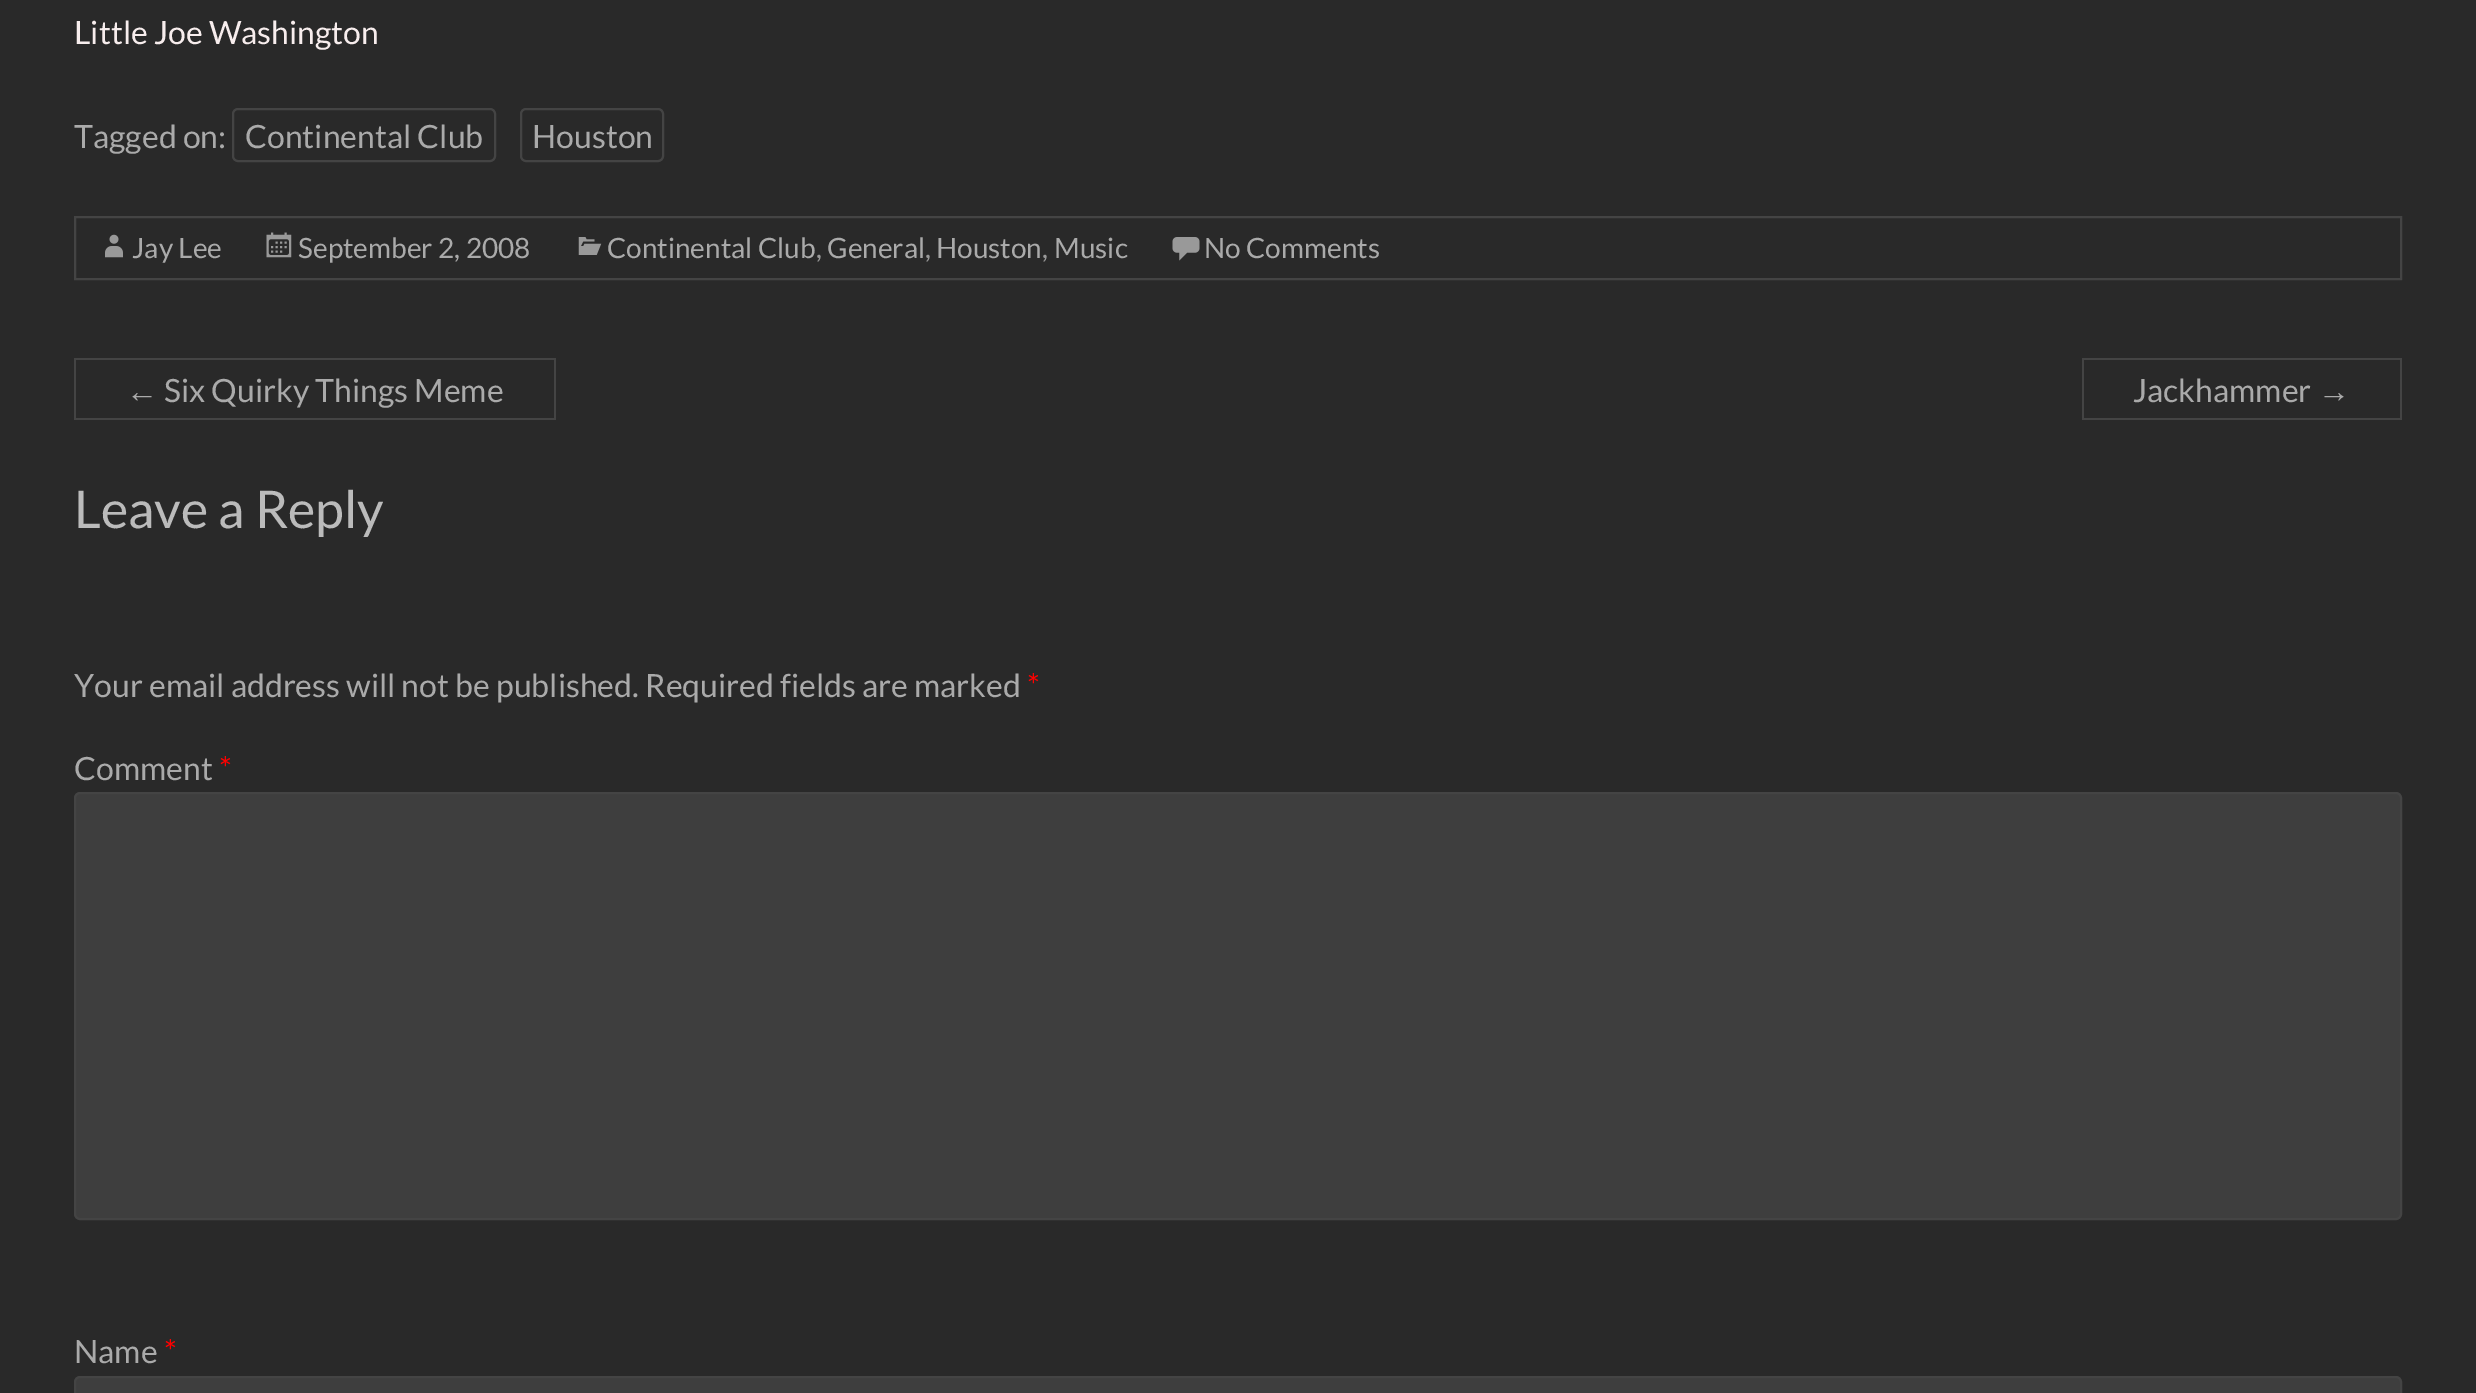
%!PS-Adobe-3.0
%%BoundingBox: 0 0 2476 1393
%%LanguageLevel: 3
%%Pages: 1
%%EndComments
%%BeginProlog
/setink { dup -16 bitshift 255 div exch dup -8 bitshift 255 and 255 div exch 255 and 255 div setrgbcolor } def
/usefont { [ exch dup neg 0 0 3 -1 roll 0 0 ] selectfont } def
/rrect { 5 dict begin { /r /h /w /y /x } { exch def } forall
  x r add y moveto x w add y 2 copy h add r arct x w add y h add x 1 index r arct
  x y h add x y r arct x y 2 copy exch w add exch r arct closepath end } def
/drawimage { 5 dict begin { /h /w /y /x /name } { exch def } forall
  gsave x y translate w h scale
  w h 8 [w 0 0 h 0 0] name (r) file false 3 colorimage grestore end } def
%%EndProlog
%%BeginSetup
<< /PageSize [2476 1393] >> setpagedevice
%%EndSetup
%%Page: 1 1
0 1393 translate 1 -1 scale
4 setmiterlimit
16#292929 setink
0 0 2476 1393 rectfill
/Lato-Regular 32 usefont
16#F7EDED setink
74 44 moveto (Little Joe Washington) show
16#AAAAAA setink
74 148 moveto (Tagged on:) show
16#444444 setink
2 setlinewidth
233 109 262 52 5 rrect stroke
16#AAAAAA setink
245 148 moveto (Continental Club) show
16#444444 setink
521 109 142 52 5 rrect stroke
16#AAAAAA setink
532 148 moveto (Houston) show
16#444444 setink
75 217 2326 62 rectstroke
(img1.raw) 105 234 18 24 drawimage
/Lato-Regular 28 usefont
16#AAAAAA setink
132 258 moveto (Jay Lee) show
(img2.raw) 266 232 26 26 drawimage
298 258 moveto (September 2, 2008) show
(img3.raw) 578 237 24 18 drawimage
607 258 moveto (Continental Club) show
16#999999 setink
816 258 moveto (,) show
16#AAAAAA setink
827 258 moveto (General) show
16#999999 setink
925 258 moveto (,) show
16#AAAAAA setink
936 258 moveto (Houston) show
16#999999 setink
1042 258 moveto (,) show
16#AAAAAA setink
1054 258 moveto (Music) show
(img4.raw) 1172 237 28 24 drawimage
1204 258 moveto (No Comments) show
/LiberationSans-Regular 32 usefont
126 402 moveto (←) show
[
    [74 418 84 2 16#444444]
    [74 358 482 2 16#444444]
    [74 358 2 62 16#444444]
    [554 358 2 62 16#444444]
    [158 418 398 2 16#444444]
] { aload pop setink rectfill } forall
/Lato-Regular 32 usefont
16#AAAAAA setink
164 402 moveto (Six Quirky Things Meme) show
2133 402 moveto (Jackhammer) show
[
    [2082 358 320 2 16#444444]
    [2082 418 236 2 16#444444]
    [2082 358 2 62 16#444444]
] { aload pop setink rectfill } forall
/LiberationSans-Regular 32 usefont
16#AAAAAA setink
2318 402 moveto (→) show
16#444444 setink
2400 358 2 62 rectfill
2318 418 84 2 rectfill
/Lato-Regular 52 usefont
16#BBBBBB setink
74 528 moveto (Leave a Reply) show
/Lato-Regular 32 usefont
16#AAAAAA setink
74 697 moveto (Your email address will not be published. Required fields are marked) show
16#FF0000 setink
1027 697 moveto (*) show
16#AAAAAA setink
74 780 moveto (Comment) show
16#FF0000 setink
219 780 moveto (*) show
16#3E3E3E setink
75 793 2326 426 5 rrect gsave fill grestore
16#444444 setink
stroke
16#AAAAAA setink
74 1363 moveto (Name) show
16#FF0000 setink
164 1363 moveto (*) show
16#3E3E3E setink
75 1377 2326 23 5 rrect gsave fill grestore
16#444444 setink
stroke
showpage
%%EOF
